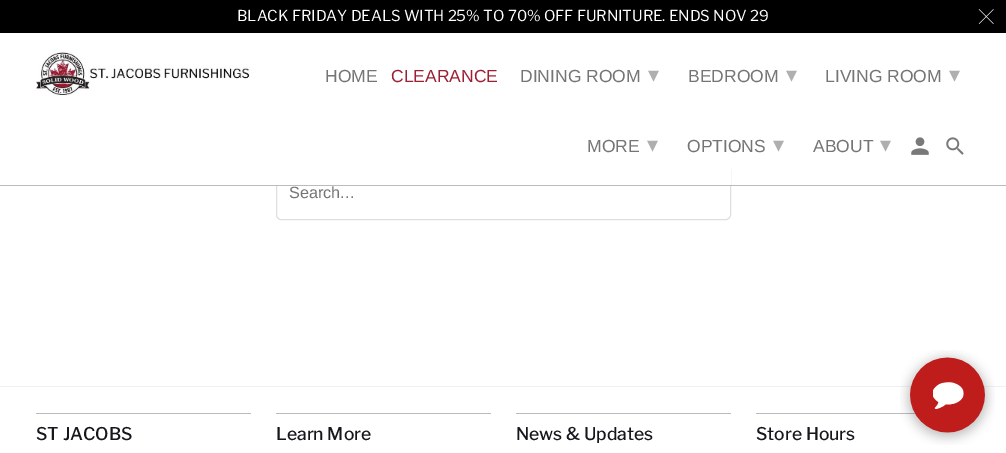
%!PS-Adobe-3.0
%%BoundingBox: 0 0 1006 453
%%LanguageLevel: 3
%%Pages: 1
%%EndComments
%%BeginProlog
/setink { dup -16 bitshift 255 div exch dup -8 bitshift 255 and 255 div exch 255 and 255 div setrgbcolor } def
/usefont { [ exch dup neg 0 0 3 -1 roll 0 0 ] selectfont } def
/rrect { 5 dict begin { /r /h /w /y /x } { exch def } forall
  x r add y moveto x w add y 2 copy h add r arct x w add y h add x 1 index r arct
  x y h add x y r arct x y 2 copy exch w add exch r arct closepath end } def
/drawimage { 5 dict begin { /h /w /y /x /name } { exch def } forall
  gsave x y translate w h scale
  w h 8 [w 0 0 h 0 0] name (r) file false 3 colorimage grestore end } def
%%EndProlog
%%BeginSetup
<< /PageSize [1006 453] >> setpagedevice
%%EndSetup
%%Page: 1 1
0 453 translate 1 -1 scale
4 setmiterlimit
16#FFFFFF setink
0 0 1006 453 rectfill
16#DCE0E0 setink
276.5 165.5 454 54 4.5 rrect stroke
[
    [276 165 455 20 16#FFFFFF]
    [0 185 1006 1 16#BBBBBB]
    [0 0 1006 33 16#000000]
] { aload pop setink rectfill } forall
/LibreFranklin-Regular 15 usefont
16#FFFFFF setink
237 21 moveto (BLACK FRIDAY DEALS WITH 25% TO 70% OFF FURNITURE. ENDS NOV 29) show
(img1.raw) 978 9 16 15 drawimage
(img2.raw) 36 52 214 44 drawimage
/LiberationSans-Regular 17.5 usefont
16#757575 setink
325 82 moveto (HOME) show
16#9D1F34 setink
391 82 moveto (CLEARANCE) show
16#757575 setink
520 82 moveto (DINING ROOM) show
/DejaVuSans-Regular 22 usefont
16#AFAFAF setink
648 82 moveto (▾) show
/LiberationSans-Regular 17.5 usefont
16#757575 setink
688 82 moveto (BEDROOM) show
/DejaVuSans-Regular 22 usefont
16#AFAFAF setink
786 82 moveto (▾) show
/LiberationSans-Regular 17.5 usefont
16#757575 setink
825 82 moveto (LIVING ROOM) show
/DejaVuSans-Regular 22 usefont
16#AFAFAF setink
949 82 moveto (▾) show
/LiberationSans-Regular 17.5 usefont
16#757575 setink
587 152 moveto (MORE) show
/DejaVuSans-Regular 22 usefont
16#AFAFAF setink
647 152 moveto (▾) show
/LiberationSans-Regular 17.5 usefont
16#757575 setink
687 152 moveto (OPTIONS) show
/DejaVuSans-Regular 22 usefont
16#AFAFAF setink
773 152 moveto (▾) show
/LiberationSans-Regular 17.5 usefont
16#757575 setink
813 152 moveto (ABOUT) show
/DejaVuSans-Regular 22 usefont
16#AFAFAF setink
880 152 moveto (▾) show
(img3.raw) 911 137 18 18 drawimage
(img4.raw) 946 137 18 18 drawimage
/LiberationSans-Regular 16.25 usefont
16#757575 setink
289 198 moveto (Search...) show
16#F1F1F1 setink
0 386 1006 1 rectfill
16#BBBBBB setink
36 413 215 1 rectfill
/LibreFranklin-Medium 17.5 usefont
16#16161D setink
36 440 moveto (ST JACOBS) show
16#BBBBBB setink
276 413 215 1 rectfill
16#16161D setink
276 440 moveto (Learn More) show
16#BBBBBB setink
516 413 215 1 rectfill
16#16161D setink
516 440 moveto (News & Updates) show
16#BBBBBB setink
756 413 160 1 rectfill
16#16161D setink
756 440 moveto (Store Hours) show
(img5.raw) 900 350 95 95 drawimage
showpage
%%EOF
